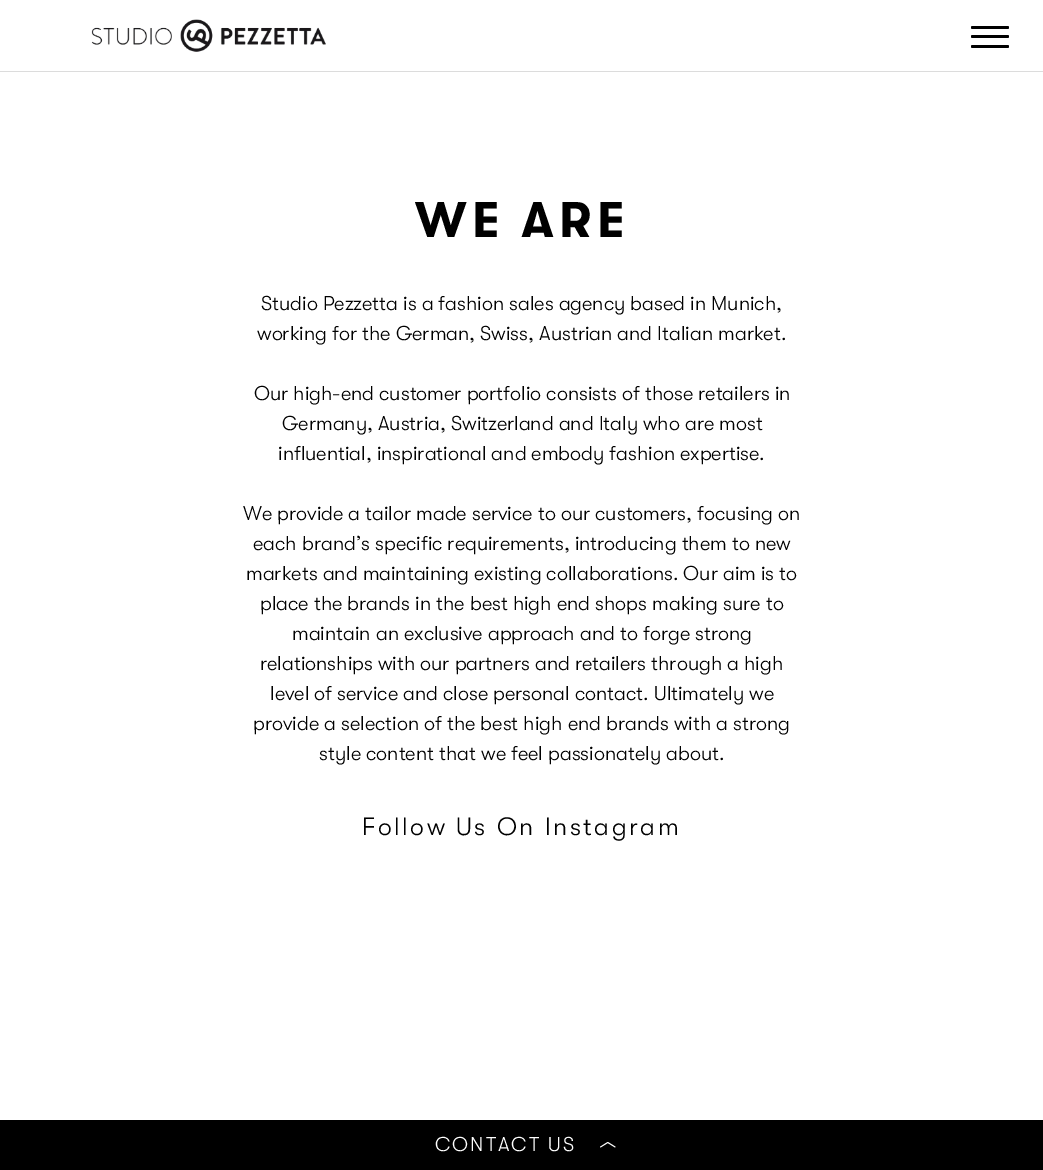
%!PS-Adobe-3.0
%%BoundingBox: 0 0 1043 1170
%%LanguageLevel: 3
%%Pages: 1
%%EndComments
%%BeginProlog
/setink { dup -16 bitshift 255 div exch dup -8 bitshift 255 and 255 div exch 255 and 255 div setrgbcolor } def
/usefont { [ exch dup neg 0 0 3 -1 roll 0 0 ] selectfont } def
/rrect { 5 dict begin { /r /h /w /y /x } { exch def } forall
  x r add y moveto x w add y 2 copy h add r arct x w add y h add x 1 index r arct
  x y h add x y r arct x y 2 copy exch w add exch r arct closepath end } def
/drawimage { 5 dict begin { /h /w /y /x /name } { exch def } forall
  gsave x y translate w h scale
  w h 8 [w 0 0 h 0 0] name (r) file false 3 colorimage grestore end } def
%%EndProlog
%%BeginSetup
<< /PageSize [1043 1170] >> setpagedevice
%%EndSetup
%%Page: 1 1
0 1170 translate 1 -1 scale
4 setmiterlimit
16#FFFFFF setink
0 0 1043 1170 rectfill
16#DCDCDC setink
0 71 1043 1 rectfill
(img1.raw) 91 19 235 33 drawimage
16#000000 setink
971 35 38 3 1.5 rrect fill
971 26 38 3 1.5 rrect fill
971 45 38 3 1.5 rrect fill
/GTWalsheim-Bold 50 usefont
415 237 moveto 5 0 (WE ARE) ashow
/GTWalsheim-Light 20 usefont
[
    [(Studio Pezzetta is a fashion sales agency based in Munich,) 261 310]
    [(working for the German, Swiss, Austrian and Italian market.) 257 340]
    [(Our high-end customer portfolio consists of those retailers in) 254 400]
    [(Germany, Austria, Switzerland and Italy who are most) 282 430]
    [(influential, inspirational and embody fashion expertise.) 278 460]
    [(We provide a tailor made service to our customers, focusing on) 243 520]
    [(each brand’s specific requirements, introducing them to new) 253 550]
    [(markets and maintaining existing collaborations. Our aim is to) 246 580]
    [(place the brands in the best high end shops making sure to) 260 610]
    [(maintain an exclusive approach and to forge strong) 292 640]
    [(relationships with our partners and retailers through a high) 260 670]
    [(level of service and close personal contact. Ultimately we) 270 700]
    [(provide a selection of the best high end brands with a strong) 253 730]
    [(style content that we feel passionately about.) 319 760]
] { aload pop moveto show } forall
/GTWalsheim-Light 25 usefont
362 835 moveto 2.5 0 (Follow Us On Instagram) ashow
0 1120 1043 50 rectfill
/GTWalsheim-Light 20 usefont
16#FFFFFF setink
435 1151 moveto 2 0 (CONTACT US) ashow
(img2.raw) 600 1142 16 6 drawimage
showpage
%%EOF
